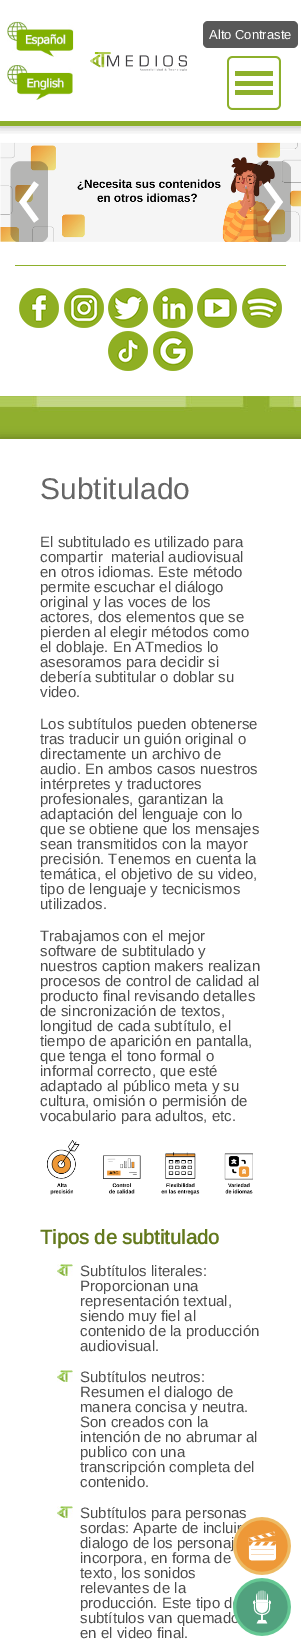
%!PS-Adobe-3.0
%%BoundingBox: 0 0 301 1649
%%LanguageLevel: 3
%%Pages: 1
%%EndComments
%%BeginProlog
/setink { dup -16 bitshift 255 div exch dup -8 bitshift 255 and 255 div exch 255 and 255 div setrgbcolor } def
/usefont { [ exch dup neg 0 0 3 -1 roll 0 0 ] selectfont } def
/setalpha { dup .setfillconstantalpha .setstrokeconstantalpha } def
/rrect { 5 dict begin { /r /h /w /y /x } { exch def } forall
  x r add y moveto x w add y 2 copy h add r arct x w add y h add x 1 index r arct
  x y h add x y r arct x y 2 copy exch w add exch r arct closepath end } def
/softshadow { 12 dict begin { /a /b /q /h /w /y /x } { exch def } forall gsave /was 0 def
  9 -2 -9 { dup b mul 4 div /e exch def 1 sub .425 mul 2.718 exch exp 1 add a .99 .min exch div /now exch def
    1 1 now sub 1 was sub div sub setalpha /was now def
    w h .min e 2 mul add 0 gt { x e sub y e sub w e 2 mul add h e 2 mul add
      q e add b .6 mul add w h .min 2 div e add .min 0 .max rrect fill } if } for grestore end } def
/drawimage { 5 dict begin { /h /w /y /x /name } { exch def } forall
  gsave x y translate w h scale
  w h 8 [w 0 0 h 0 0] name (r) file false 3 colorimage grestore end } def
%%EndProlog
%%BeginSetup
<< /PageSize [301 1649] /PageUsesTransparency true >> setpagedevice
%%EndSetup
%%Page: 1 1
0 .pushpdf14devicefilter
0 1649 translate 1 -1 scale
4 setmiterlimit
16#FFFFFF setink
0 0 301 1649 rectfill
(img5.raw) 0 142 301 100 drawimage
gsave
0 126 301 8 rectclip
16#000000 setink
-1 -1 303 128 0 5 0.3 softshadow
grestore
16#8DB02B setink
0 121 301 5 rectfill
(img1.raw) 7 21 67 36 drawimage
(img2.raw) 7 65 66 35 drawimage
16#585858 setink
203 21 95 27 5 rrect fill
/Arimo-Regular 13 usefont
16#FFFFFF setink
209 39 moveto (Alto Contraste) show
(img3.raw) 227 56 54 54 drawimage
(img4.raw) 90 52 97 19 drawimage
(img6.raw) 10 161 38 81 drawimage
(img7.raw) 253 161 38 81 drawimage
16#8DB02B setink
15 265 271 1 rectfill
(img8.raw) 19 288 40 40 drawimage
(img9.raw) 64 288 40 40 drawimage
(img10.raw) 108 288 40 40 drawimage
(img11.raw) 153 288 40 40 drawimage
(img12.raw) 197 288 40 40 drawimage
(img13.raw) 242 288 40 40 drawimage
(img14.raw) 108 331 40 40 drawimage
(img15.raw) 153 331 40 40 drawimage
(img16.raw) 0 396 301 43 drawimage
16#000000 setink
-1 438 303 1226 0 5 0.3 softshadow
16#FFFFFF setink
0 439 301 1210 rectfill
/Arimo-Regular 30 usefont
16#666666 setink
40 499 moveto (Subtitulado) show
/Arimo-Regular 15 usefont
16#4D4D4D setink
[
    [(El subtitulado es utilizado para) 40 547]
    [(compartir  material audiovisual) 40 562]
    [(en otros idiomas. Este método) 40 577]
    [(permite escuchar el diálogo) 40 592]
    [(original y las voces de los) 40 607]
    [(actores, dos elementos que se) 40 622]
    [(pierden al elegir métodos como) 40 637]
    [(el doblaje. En ATmedios lo) 40 652]
    [(asesoramos para decidir si) 40 667]
    [(debería subtitular o doblar su) 40 682]
    [(video.) 40 697]
    [(Los subtítulos pueden obtenerse) 40 729]
    [(tras traducir un guión original o) 40 744]
    [(directamente un archivo de) 40 759]
    [(audio. En ambos casos nuestros) 40 774]
    [(intérpretes y traductores) 40 789]
    [(profesionales, garantizan la) 40 804]
    [(adaptación del lenguaje con lo) 40 819]
    [(que se obtiene que los mensajes) 40 834]
    [(sean transmitidos con la mayor) 40 849]
    [(precisión. Tenemos en cuenta la) 40 864]
    [(temática, el objetivo de su video,) 40 879]
    [(tipo de lenguaje y tecnicismos) 40 894]
    [(utilizados.) 40 909]
    [(Trabajamos con el mejor) 40 941]
    [(software de subtitulado y) 40 956]
    [(nuestros caption makers realizan) 40 971]
    [(procesos de control de calidad al) 40 986]
    [(producto final revisando detalles) 40 1001]
    [(de sincronización de textos,) 40 1016]
    [(longitud de cada subtítulo, el) 40 1031]
    [(tiempo de aparición en pantalla,) 40 1046]
    [(que tenga el tono formal o) 40 1061]
    [(informal correcto, que esté) 40 1076]
    [(adaptado al público meta y su) 40 1091]
    [(cultura, omisión o permisión de) 40 1106]
    [(vocabulario para adultos, etc.) 40 1121]
] { aload pop moveto show } forall
(img17.raw) 47 1140 206 55 drawimage
/Arimo-Bold 20 usefont
16#63791D setink
40 1244 moveto (Tipos de subtitulado) show
(img18.raw) 57 1264 16 12 drawimage
/Arimo-Regular 15 usefont
16#4D4D4D setink
[
    [(Subtítulos literales:) 80 1276]
    [(Proporcionan una) 80 1291]
    [(representación textual,) 80 1306]
    [(siendo muy fiel al) 80 1321]
    [(contenido de la producción) 80 1336]
    [(audiovisual.) 80 1351]
] { aload pop moveto show } forall
(img18.raw) 57 1370 16 12 drawimage
[
    [(Subtítulos neutros:) 80 1382]
    [(Resumen el dialogo de) 80 1397]
    [(manera concisa y neutra.) 80 1412]
    [(Son creados con la) 80 1427]
    [(intención de no abrumar al) 80 1442]
    [(publico con una) 80 1457]
    [(transcripción completa del) 80 1472]
    [(contenido.) 80 1487]
] { aload pop moveto show } forall
(img18.raw) 57 1506 16 12 drawimage
[
    [(Subtítulos para personas) 80 1518]
    [(sordas: Aparte de incluir) 80 1533]
    [(dialogo de los personaj) 80 1548]
    [(incorpora, en forma de) 80 1563]
    [(texto, los sonidos) 80 1578]
    [(relevantes de la) 80 1593]
    [(producción. Este tipo d) 80 1608]
    [(subtítulos van quemado) 80 1623]
    [(en el video final.) 80 1638]
] { aload pop moveto show } forall
(img19.raw) 233 1517 58 58 drawimage
(img20.raw) 233 1578 58 58 drawimage
.poppdf14devicefilter showpage
%%EOF
